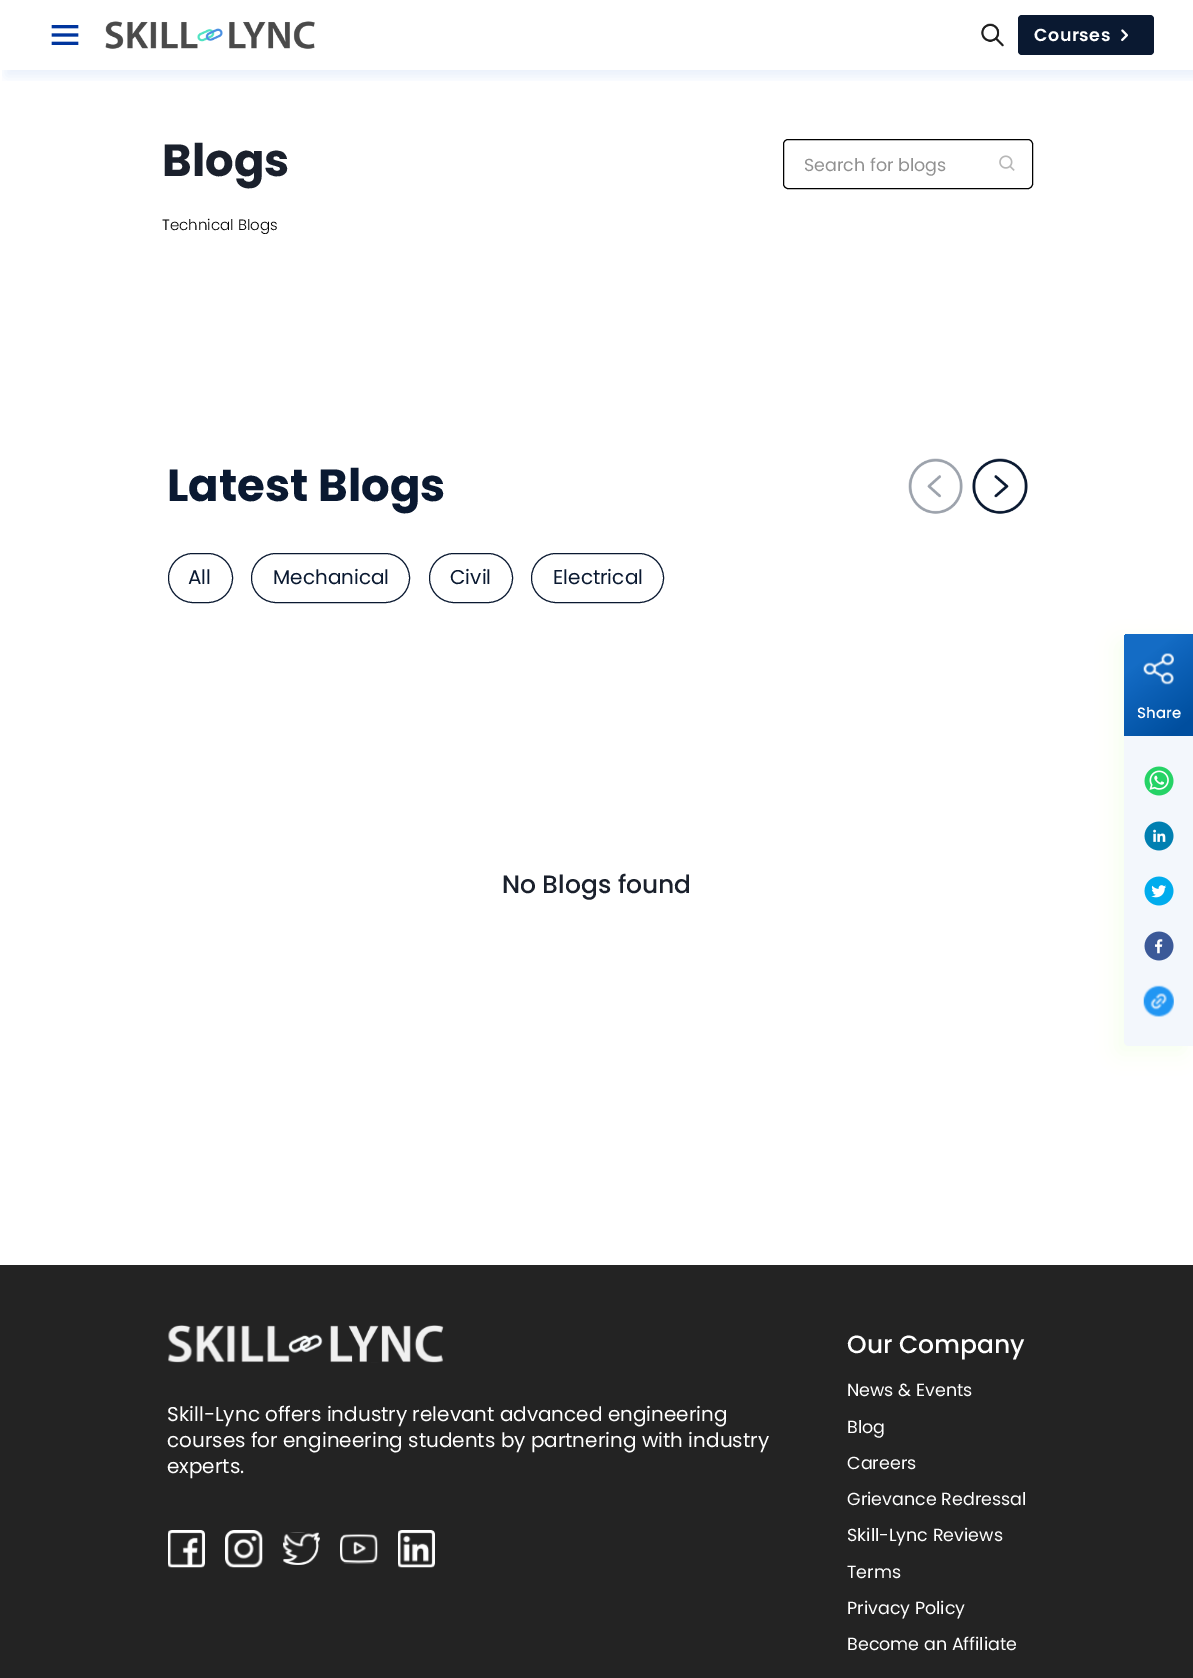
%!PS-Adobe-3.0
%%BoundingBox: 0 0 1193 1678
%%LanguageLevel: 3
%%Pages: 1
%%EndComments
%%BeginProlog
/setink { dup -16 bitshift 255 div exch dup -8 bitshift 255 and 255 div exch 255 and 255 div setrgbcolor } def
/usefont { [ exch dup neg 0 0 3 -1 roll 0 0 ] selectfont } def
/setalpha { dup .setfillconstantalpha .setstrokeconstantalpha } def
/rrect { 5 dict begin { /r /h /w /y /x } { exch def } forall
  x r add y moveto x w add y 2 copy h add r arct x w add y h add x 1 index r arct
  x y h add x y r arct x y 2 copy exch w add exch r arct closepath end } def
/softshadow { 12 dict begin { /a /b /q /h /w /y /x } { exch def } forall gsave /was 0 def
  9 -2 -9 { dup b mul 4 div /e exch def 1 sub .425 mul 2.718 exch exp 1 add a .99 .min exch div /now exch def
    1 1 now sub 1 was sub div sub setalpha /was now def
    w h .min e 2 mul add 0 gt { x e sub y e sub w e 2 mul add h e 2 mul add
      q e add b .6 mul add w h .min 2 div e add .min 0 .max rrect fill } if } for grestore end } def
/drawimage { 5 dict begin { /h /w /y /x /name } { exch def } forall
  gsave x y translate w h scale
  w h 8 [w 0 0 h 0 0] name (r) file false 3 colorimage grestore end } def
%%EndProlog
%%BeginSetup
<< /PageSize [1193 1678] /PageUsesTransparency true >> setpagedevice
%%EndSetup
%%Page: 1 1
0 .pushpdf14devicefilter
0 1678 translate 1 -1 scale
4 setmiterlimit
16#FFFFFF setink
0 0 1193 1678 rectfill
gsave
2 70 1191 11 rectclip
16#146CC5 setink
6 6 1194 70 0 6 0.1 softshadow
grestore
(img1.raw) 51 25 28 20 drawimage
(img2.raw) 105 21 210 28 drawimage
(img3.raw) 981 23 23 24 drawimage
16#0A1931 setink
1018 15 136 40 4 rrect fill
/Poppins-SemiBold 17.5 usefont
16#FFFFFF setink
1034 41 moveto 0.5 0 (Courses) ashow
(img4.raw) 1121 29 7 13 drawimage
/Poppins-Bold 45 usefont
16#1A202C setink
162 176 moveto (Blogs) show
/Poppins-Light 15 usefont
16#000000 setink
162 230 moveto (Technical Blogs) show
783.5 139.5 249 49 4.5 rrect stroke
/Poppins-Regular 17.5 usefont
16#919191 setink
804 171 moveto (Search for blogs) show
(img5.raw) 999 155 16 16 drawimage
/Poppins-Bold 45 usefont
16#0A1931 setink
167 501 moveto (Latest Blogs) show
(img6.raw) 908 458 55 56 drawimage
(img7.raw) 972 458 56 56 drawimage
168.5 553.5 64 49 24.5 rrect stroke
/Poppins-Regular 20 usefont
188 584 moveto (All) show
251.5 553.5 158 49 24.5 rrect stroke
273 584 moveto (Mechanical) show
429.5 553.5 83 49 24.5 rrect stroke
450 584 moveto (Civil) show
531.5 553.5 132 49 24.5 rrect stroke
553 584 moveto (Electrical) show
/Poppins-Medium 25 usefont
16#1A202C setink
502 893 moveto (No Blogs found) show
16#D5F8B9 setink
1116 641 70 413 5 10 0.2 softshadow
16#F3F7FC setink
1129 634 moveto 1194 634 lineto 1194 1046 lineto 1129 1046 lineto 1126 1046 1124 1044 1124 1041 curveto 1124 639 lineto 1124 636 1126 634 1129 634 curveto closepath fill
gsave 1129 634 moveto 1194 634 lineto 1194 736 lineto 1124 736 lineto 1124 639 lineto 1124 636 1126 634 1129 634 curveto closepath clip newpath
<< /ShadingType 2 /ColorSpace /DeviceRGB /Coords [1121 636 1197 734] /Extend [true true] /Function << /FunctionType 3 /Domain [0 1] /Functions [<< /FunctionType 2 /Domain [0 1] /C0 [0.078 0.424 0.773] /C1 [0.078 0.424 0.773] /N 1 >> << /FunctionType 2 /Domain [0 1] /C0 [0.078 0.424 0.773] /C1 [0 0.306 0.62] /N 1 >> << /FunctionType 2 /Domain [0 1] /C0 [0 0.306 0.62] /C1 [0 0.306 0.62] /N 1 >>] /Bounds [0.25 0.89] /Encode [0 1 0 1 0 1] >> >> shfill grestore
(img8.raw) 1143 653 31 32 drawimage
/Poppins-Medium 15 usefont
16#FFFFFF setink
1137 718 moveto (Share) show
(img9.raw) 1144 766 30 30 drawimage
(img10.raw) 1144 821 30 30 drawimage
(img11.raw) 1144 876 30 30 drawimage
(img12.raw) 1144 931 30 30 drawimage
(img13.raw) 1143 985 31 32 drawimage
16#232323 setink
0 1265 1193 413 rectfill
(img14.raw) 168 1325 276 38 drawimage
/Poppins-Regular 20 usefont
16#FFFFFF setink
[
    [(Skill-Lync offers industry relevant advanced engineering) 167 1421]
    [(courses for engineering students by partnering with industry) 167 1447]
    [(experts.) 167 1473]
] { aload pop moveto show } forall
(img15.raw) 168 1530 37 38 drawimage
(img16.raw) 225 1530 38 38 drawimage
(img17.raw) 283 1532 37 33 drawimage
(img18.raw) 340 1534 38 30 drawimage
(img19.raw) 398 1530 37 38 drawimage
/Poppins-Medium 25 usefont
847 1353 moveto (Our Company) show
/Poppins-Regular 17.5 usefont
[
    [(News & Events) 847 1396]
    [(Blog) 847 1433]
    [(Careers) 847 1469]
    [(Grievance Redressal) 847 1505]
    [(Skill-Lync Reviews) 847 1541]
    [(Terms) 847 1578]
    [(Privacy Policy) 847 1614]
    [(Become an Affiliate) 847 1650]
] { aload pop moveto show } forall
.poppdf14devicefilter showpage
%%EOF
